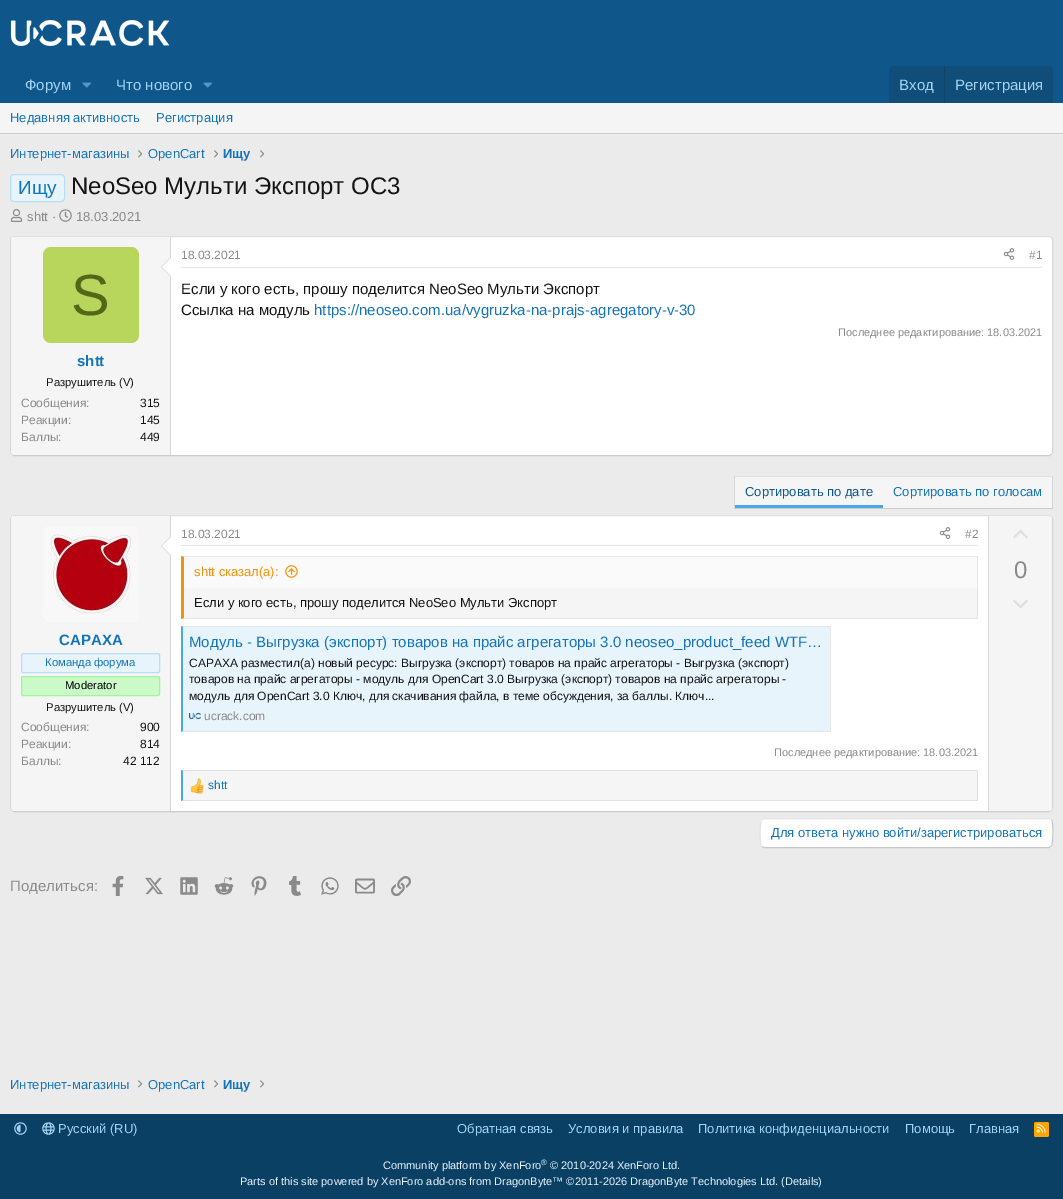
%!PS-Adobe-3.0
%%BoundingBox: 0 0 1063 1199
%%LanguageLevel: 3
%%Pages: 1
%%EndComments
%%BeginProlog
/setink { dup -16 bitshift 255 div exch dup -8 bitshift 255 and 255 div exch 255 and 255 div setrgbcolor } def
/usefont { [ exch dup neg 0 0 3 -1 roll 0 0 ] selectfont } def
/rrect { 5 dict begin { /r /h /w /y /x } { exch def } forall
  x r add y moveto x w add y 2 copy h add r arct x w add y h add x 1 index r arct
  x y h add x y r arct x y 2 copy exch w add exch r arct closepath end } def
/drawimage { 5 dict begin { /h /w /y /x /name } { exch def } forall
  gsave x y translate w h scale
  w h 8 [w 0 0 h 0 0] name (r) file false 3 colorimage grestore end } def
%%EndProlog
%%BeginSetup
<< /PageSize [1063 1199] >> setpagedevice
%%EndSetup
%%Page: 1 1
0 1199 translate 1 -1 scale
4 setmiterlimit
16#EBEBEB setink
0 0 1063 1199 rectfill
16#0F578A setink
0 0 1063 103 rectfill
(img1.raw) 10 20 159 26 drawimage
/LiberationSans-Regular 15 usefont
16#A3D4F5 setink
25 90 moveto (Форум) show
(img2.raw) 82 82 9 6 drawimage
116 90 moveto (Что нового) show
(img2.raw) 203 82 9 6 drawimage
16#104D78 setink
893 66 moveto 1049 66 lineto 1051 66 1053 68 1053 70 curveto 1053 103 lineto 889 103 lineto 889 70 lineto 889 68 891 66 893 66 curveto closepath fill
16#A3D4F5 setink
899 90 moveto (Вход) show
16#114469 setink
944 66 1 37 rectfill
16#A3D4F5 setink
955 90 moveto (Регистрация) show
16#F5F5F5 setink
0 103 1063 30 rectfill
16#CCCCCC setink
0 133 1063 1 rectfill
/LiberationSans-Regular 13 usefont
16#1474B8 setink
[
    [(Недавняя активность) 10 122]
    [(Регистрация) 156 122]
    [(Интернет-магазины) 10 158]
] { aload pop moveto show } forall
(img3.raw) 138 150 5 8 drawimage
148 158 moveto (OpenCart) show
(img4.raw) 214 150 4 8 drawimage
/LiberationSans-Bold 13 usefont
223 158 moveto (Ищу) show
(img4.raw) 260 150 4 8 drawimage
16#E8F4FC setink
10.5 174.5 54 27 3.5 rrect gsave fill grestore
16#BADDF7 setink
stroke
/LiberationSans-Regular 19 usefont
16#1474B8 setink
18 194 moveto (Ищу) show
/LiberationSans-Regular 24 usefont
16#141414 setink
71 194 moveto (NeoSeo Мульти Экспорт ОС3) show
(img5.raw) 10 209 13 13 drawimage
/LiberationSans-Regular 13 usefont
16#8A8A8A setink
27 221 moveto (shtt ·) show
(img6.raw) 59 209 13 13 drawimage
76 221 moveto (18.03.2021) show
16#FFFFFF setink
10 236 1043 220 4 rrect fill
16#E0E0E0 setink
11.5 237.5 moveto 14 236.5 lineto 1049 236.5 lineto 1051.5 237.5 lineto stroke
16#D6D6D6 setink
1051.5 237.5 moveto 1052 238 1052.5 239 1052.5 240 curveto 1052.5 452 lineto 1052.5 453 1052 454 1051.5 454.5 curveto stroke
16#CCCCCC setink
1051.5 454.5 moveto 1049 455.5 lineto 14 455.5 lineto 11.5 454.5 lineto stroke
16#D6D6D6 setink
11.5 454.5 moveto 11 454 10.5 453 10.5 452 curveto 10.5 240 lineto 10.5 239 11 238 11.5 237.5 curveto stroke
16#F5F5F5 setink
14 237 moveto 171 237 lineto 171 455 lineto 14 455 lineto 12.5 455 11 453.5 11 452 curveto 11 240 lineto 11 238.5 12.5 237 14 237 curveto closepath fill
16#D6D6D6 setink
170 237 1 218 rectfill
171 257 moveto 171 277 lineto 161 267 lineto closepath fill
16#FFFFFF setink
171 258 moveto 171 276 lineto 162 267 lineto closepath fill
16#B8D65C setink
43 247 96 96 8 rrect fill
/LiberationSans-Regular 58 usefont
16#53661A setink
71 315 moveto (S) show
/LiberationSans-Bold 15 usefont
16#1474B8 setink
77 366 moveto (shtt) show
/LiberationSans-Regular 11.25 usefont
16#141414 setink
46 386 moveto (Разрушитель \(V\)) show
/LiberationSans-Regular 12 usefont
16#8A8A8A setink
21 407 moveto (Сообщения:) show
16#141414 setink
140 407 moveto (315) show
16#8A8A8A setink
21 424 moveto (Реакции:) show
16#141414 setink
140 424 moveto (145) show
16#8A8A8A setink
21 441 moveto (Баллы:) show
16#141414 setink
140 441 moveto (449) show
16#E6E6E6 setink
181 267 861 1 rectfill
16#8A8A8A setink
181 259 moveto (18.03.2021) show
(img7.raw) 1003 248 12 12 drawimage
1029 259 moveto (#1) show
/LiberationSans-Regular 15 usefont
16#141414 setink
181 294 moveto (Если у кого есть, прошу поделится NeoSeo Мульти Экспорт) show
181 315 moveto (Ссылка на модуль) show
16#1474B8 setink
314 315 moveto (https://neoseo.com.ua/vygruzka-na-prajs-agregatory-v-30) show
/LiberationSans-Regular 11 usefont
16#8A8A8A setink
838 336 moveto (Последнее редактирование: 18.03.2021) show
[
    [735 477 317 31 16#F5F5F5]
    [734 476 319 1 16#E0E0E0]
    [1052 476 1 33 16#D6D6D6]
    [734 508 319 1 16#CCCCCC]
    [734 476 1 33 16#D6D6D6]
    [735 505 148 3 16#47A7EB]
] { aload pop setink rectfill } forall
/LiberationSans-Regular 13 usefont
16#0F578A setink
745 496 moveto (Сортировать по дате) show
16#1474B8 setink
893 496 moveto (Сортировать по голосам) show
16#FFFFFF setink
10 515 1043 297 4 rrect fill
16#E0E0E0 setink
11.5 516.5 moveto 14 515.5 lineto 1049 515.5 lineto 1051.5 516.5 lineto stroke
16#D6D6D6 setink
1051.5 516.5 moveto 1052.5 519 lineto 1052.5 808 lineto 1051.5 810.5 lineto stroke
16#CCCCCC setink
1051.5 810.5 moveto 1049 811.5 lineto 14 811.5 lineto 11.5 810.5 lineto stroke
16#D6D6D6 setink
11.5 810.5 moveto 10.5 808 lineto 10.5 519 lineto 11.5 516.5 lineto stroke
16#E6E6E6 setink
181 545 797 1 rectfill
/LiberationSans-Regular 12 usefont
16#8A8A8A setink
181 538 moveto (18.03.2021) show
(img8.raw) 939 527 12 12 drawimage
965 538 moveto (#2) show
16#F5F5F5 setink
184 588 793 30 rectfill
16#E6E6E6 setink
181 556 moveto 978 556 lineto 977 557 lineto 184 557 lineto closepath fill
977 556 1 63 rectfill
978 619 moveto 181 619 lineto 184 618 lineto 977 618 lineto closepath fill
16#F2930D setink
181 619 moveto 181 556 lineto 184 557 lineto 184 618 lineto closepath fill
16#FAFAFA setink
184 557 793 31 rectfill
/LiberationSans-Regular 13 usefont
16#F2930D setink
194 576 moveto (shtt сказал\(а\):) show
(img9.raw) 285 565 13 13 drawimage
16#141414 setink
194 607 moveto (Если у кого есть, прошу поделится NeoSeo Мульти Экспорт) show
16#E8F4FC setink
183 627 647 104 rectfill
16#E6E6E6 setink
181 626 moveto 831 626 lineto 830 627 lineto 183 627 lineto closepath fill
830 626 1 106 rectfill
831 732 moveto 181 732 lineto 183 731 lineto 830 731 lineto closepath fill
16#47A7EB setink
181 732 moveto 181 626 lineto 183 627 lineto 183 731 lineto closepath fill
/LiberationSans-Regular 15 usefont
16#1474B8 setink
189 647 moveto (Модуль - Выгрузка \(экспорт\) товаров на прайс агрегаторы 3.0 neoseo_product_feed WTF…) show
/LiberationSans-Regular 12 usefont
16#141414 setink
[
    [(CAPAXA разместил\(а\) новый ресурс: Выгрузка \(экспорт\) товаров на прайс агрегаторы - Выгрузка \(экспорт\)) 189 667]
    [(товаров на прайс агрегаторы - модуль для OpenCart 3.0 Выгрузка \(экспорт\) товаров на прайс агрегаторы -) 189 683]
    [(модуль для OpenCart 3.0 Ключ, для скачивания файла, в теме обсуждения, за баллы. Ключ...) 189 700]
] { aload pop moveto show } forall
(img10.raw) 189 712 12 8 drawimage
16#8A8A8A setink
204 720 moveto (ucrack.com) show
/LiberationSans-Regular 11 usefont
774 756 moveto (Последнее редактирование: 18.03.2021) show
16#F5F5F5 setink
183 771 794 29 rectfill
16#E0E0E0 setink
181 770 moveto 978 770 lineto 977 771 lineto 183 771 lineto closepath fill
977 770 1 31 rectfill
978 801 moveto 181 801 lineto 183 800 lineto 977 800 lineto closepath fill
16#47A7EB setink
181 801 moveto 181 770 lineto 183 771 lineto 183 800 lineto closepath fill
(img11.raw) 190 778 14 16 drawimage
/LiberationSans-Regular 12 usefont
16#1474B8 setink
208 789 moveto (shtt) show
16#F5F5F5 setink
988 516 moveto 1049 516 lineto 1050.5 516 1052 517.5 1052 519 curveto 1052 808 lineto 1052 809.5 1050.5 811 1049 811 curveto 988 811 lineto closepath fill
16#D6D6D6 setink
988 516 1 295 rectfill
(img12.raw) 1013 529 15 10 drawimage
/LiberationSans-Regular 24 usefont
16#8A8A8A setink
1014 578 moveto (0) show
(img13.raw) 1013 599 15 10 drawimage
16#F5F5F5 setink
14 516 moveto 171 516 lineto 171 811 lineto 14 811 lineto 12.5 811 11 809.5 11 808 curveto 11 519 lineto 11 517.5 12.5 516 14 516 curveto closepath fill
16#D6D6D6 setink
170 516 1 295 rectfill
16#FFFFFF setink
43 526 96 96 8 rrect fill
(img14.raw) 43 526 96 96 drawimage
16#D6D6D6 setink
171 536 moveto 171 556 lineto 161 546 lineto closepath fill
16#FFFFFF setink
171 537 moveto 171 555 lineto 162 546 lineto closepath fill
/LiberationSans-Bold 15 usefont
16#1474B8 setink
59 645 moveto (CAPAXA) show
16#E8F4FC setink
21.5 653.5 138 19 1.5 rrect gsave fill grestore
16#BADDF7 setink
stroke
/LiberationSans-Regular 11.25 usefont
16#1474B8 setink
45 666 moveto (Команда форума) show
16#CCF9C8 setink
21.5 676.5 138 19 1.5 rrect gsave fill grestore
16#A2F49A setink
stroke
16#000000 setink
65 689 moveto (Moderator) show
16#141414 setink
46 711 moveto (Разрушитель \(V\)) show
/LiberationSans-Regular 12 usefont
16#8A8A8A setink
21 731 moveto (Сообщения:) show
16#141414 setink
140 731 moveto (900) show
16#8A8A8A setink
21 748 moveto (Реакции:) show
16#141414 setink
140 748 moveto (814) show
16#8A8A8A setink
21 765 moveto (Баллы:) show
16#141414 setink
123 765 moveto (42 112) show
16#FFFFFF setink
760 818 293 30 4 rrect fill
16#C9C9C9 setink
1051.5 819.5 moveto 1053.5 821.5 1053 844.5 1051.5 846 curveto 1049 847.5 lineto 764 847.5 lineto 761.5 846.5 lineto stroke
16#E3E3E3 setink
761.5 846.5 moveto 759.5 844.5 760 821.5 761.5 820 curveto 764 818.5 lineto 1049 818.5 lineto 1051.5 819.5 lineto stroke
/LiberationSans-Regular 13 usefont
16#1474B8 setink
771 837 moveto (Для ответа нужно войти/зарегистрироваться) show
/LiberationSans-Regular 15 usefont
16#8A8A8A setink
10 891 moveto (Поделиться:) show
(img15.raw) 112 876 12 20 drawimage
(img16.raw) 145 877 18 18 drawimage
(img17.raw) 180 877 18 18 drawimage
(img18.raw) 214 877 20 18 drawimage
(img19.raw) 251 876 16 20 drawimage
(img20.raw) 289 876 12 20 drawimage
(img21.raw) 321 877 18 18 drawimage
(img22.raw) 355 878 20 16 drawimage
(img23.raw) 391 876 20 20 drawimage
/LiberationSans-Regular 13 usefont
16#1474B8 setink
10 1089 moveto (Интернет-магазины) show
(img3.raw) 138 1080 5 8 drawimage
148 1089 moveto (OpenCart) show
(img4.raw) 214 1080 4 8 drawimage
/LiberationSans-Bold 13 usefont
223 1089 moveto (Ищу) show
(img4.raw) 260 1080 4 8 drawimage
16#0B4065 setink
0 1114 1063 85 rectfill
(img24.raw) 14 1122 13 13 drawimage
(img25.raw) 42 1122 13 13 drawimage
/LiberationSans-Regular 13 usefont
16#A3D4F5 setink
[
    [(Русский \(RU\)) 58 1133]
    [(Обратная связь) 457 1133]
    [(Условия и правила) 568 1133]
    [(Политика конфиденциальности) 698 1133]
    [(Помощь) 905 1133]
    [(Главная) 969 1133]
] { aload pop moveto show } forall
16#FFA500 setink
1034 1122 15 15 2 rrect fill
(img26.raw) 1036 1123 10 10 drawimage
/LiberationSans-Regular 11 usefont
16#E8F4FC setink
383 1169 moveto (Community platform by XenForo) show
/LiberationSans-Regular 8 usefont
541 1165 moveto (®) show
/LiberationSans-Regular 11 usefont
550 1169 moveto (© 2010-2024 XenForo Ltd.) show
240 1185 moveto (Parts of this site powered by XenForo add-ons from DragonByte™ ©2011-2026 DragonByte Technologies Ltd. \(Details\)) show
showpage
%%EOF
